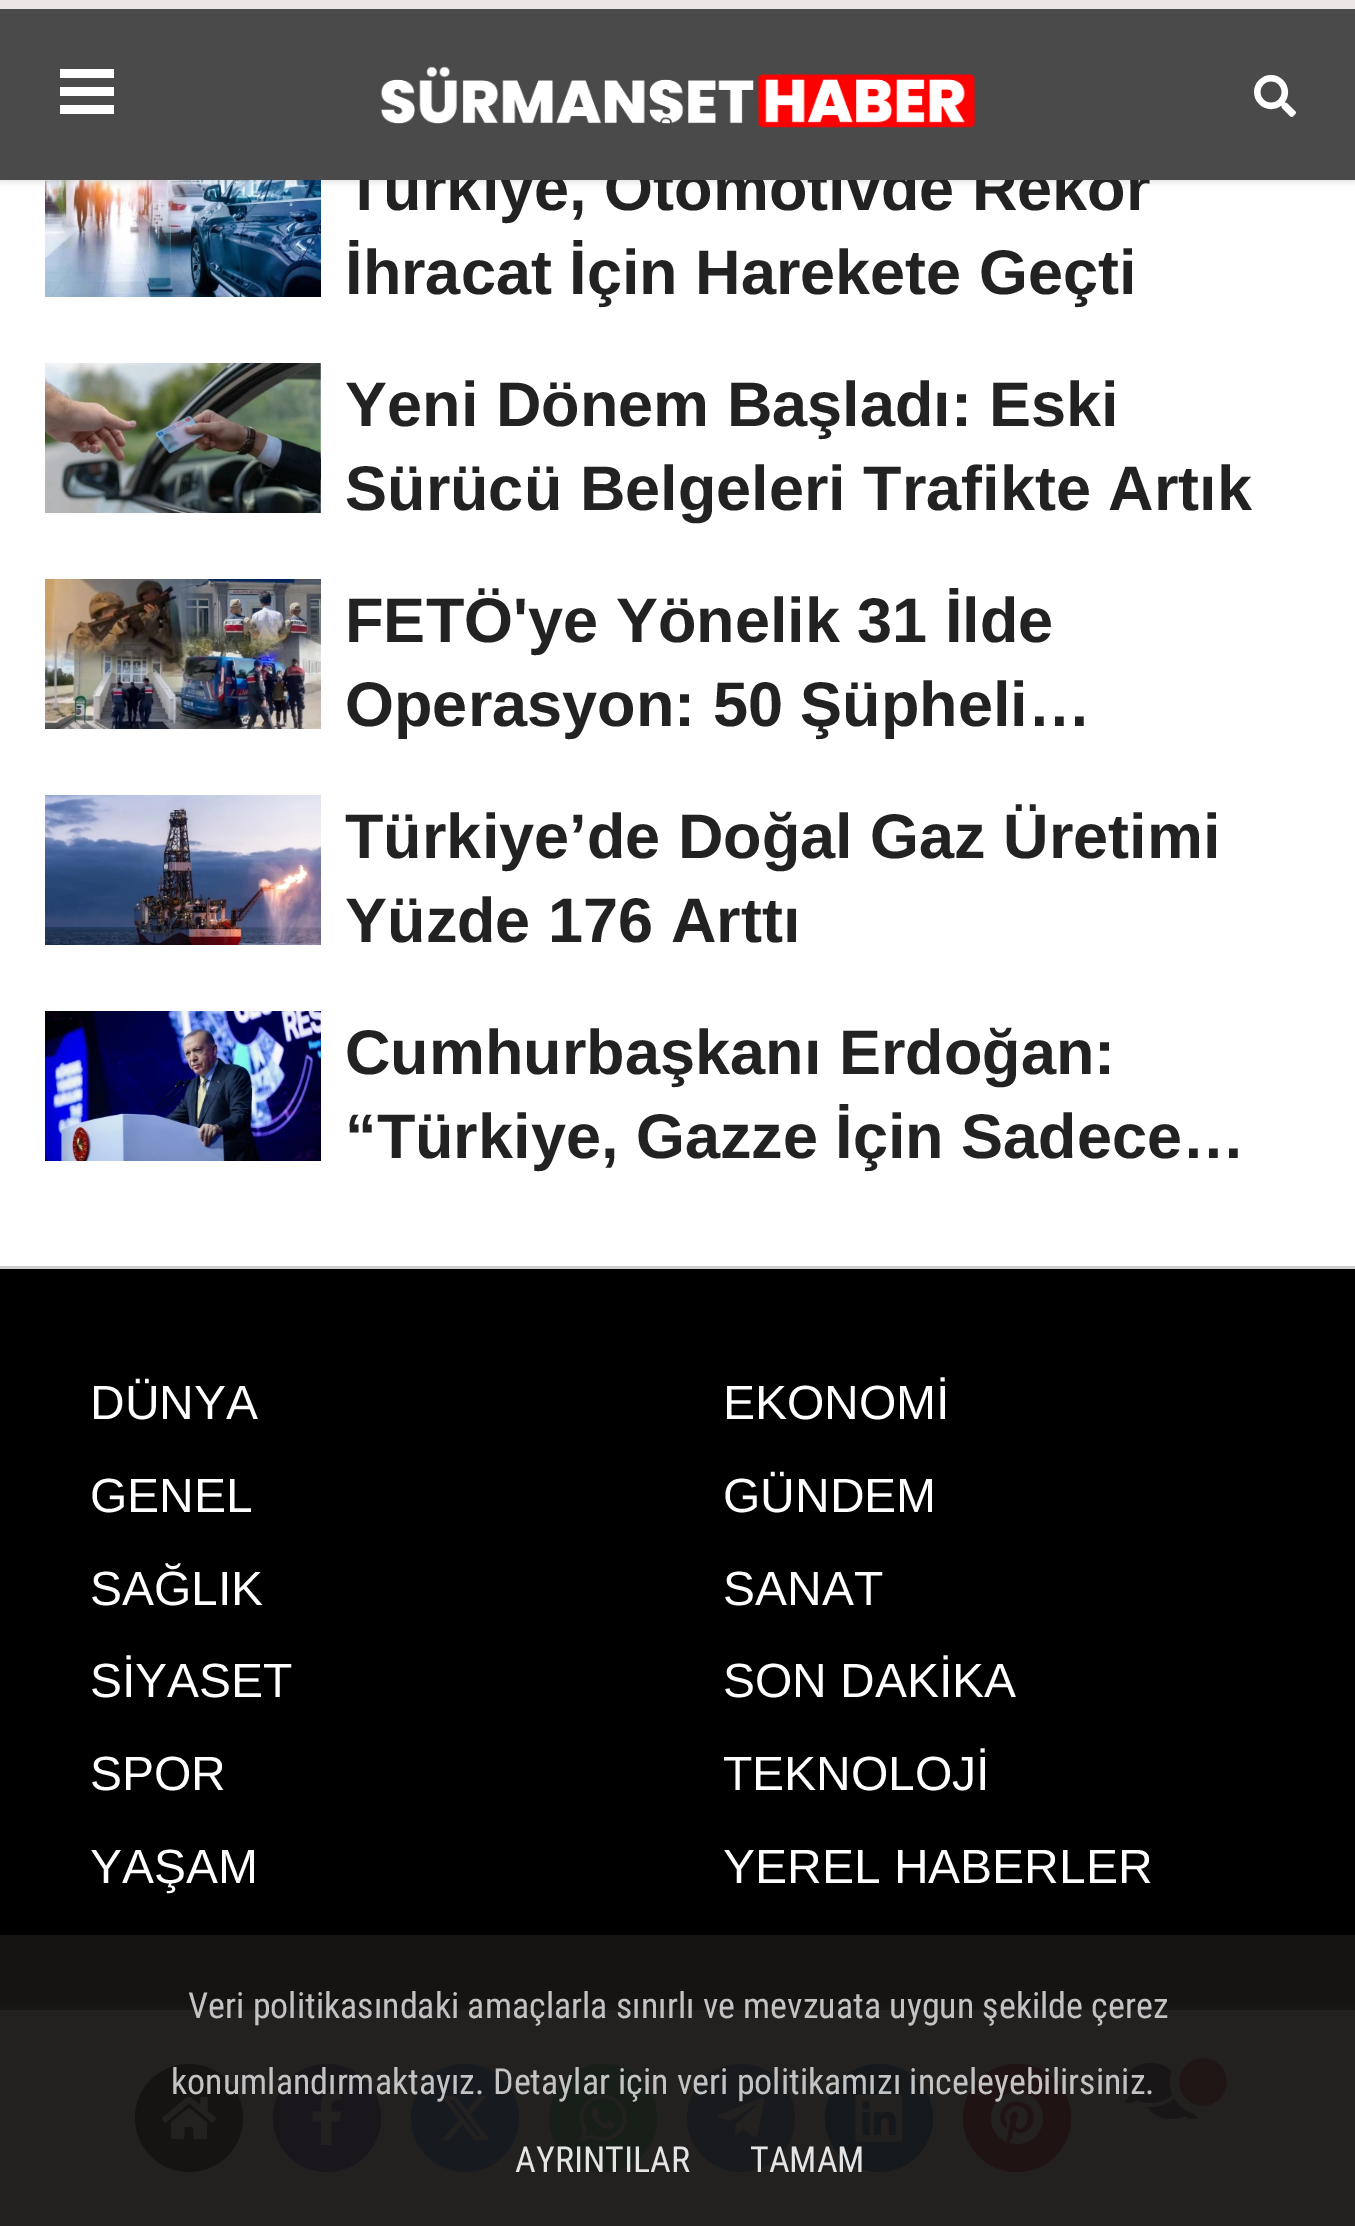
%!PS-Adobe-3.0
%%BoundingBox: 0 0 1355 2226
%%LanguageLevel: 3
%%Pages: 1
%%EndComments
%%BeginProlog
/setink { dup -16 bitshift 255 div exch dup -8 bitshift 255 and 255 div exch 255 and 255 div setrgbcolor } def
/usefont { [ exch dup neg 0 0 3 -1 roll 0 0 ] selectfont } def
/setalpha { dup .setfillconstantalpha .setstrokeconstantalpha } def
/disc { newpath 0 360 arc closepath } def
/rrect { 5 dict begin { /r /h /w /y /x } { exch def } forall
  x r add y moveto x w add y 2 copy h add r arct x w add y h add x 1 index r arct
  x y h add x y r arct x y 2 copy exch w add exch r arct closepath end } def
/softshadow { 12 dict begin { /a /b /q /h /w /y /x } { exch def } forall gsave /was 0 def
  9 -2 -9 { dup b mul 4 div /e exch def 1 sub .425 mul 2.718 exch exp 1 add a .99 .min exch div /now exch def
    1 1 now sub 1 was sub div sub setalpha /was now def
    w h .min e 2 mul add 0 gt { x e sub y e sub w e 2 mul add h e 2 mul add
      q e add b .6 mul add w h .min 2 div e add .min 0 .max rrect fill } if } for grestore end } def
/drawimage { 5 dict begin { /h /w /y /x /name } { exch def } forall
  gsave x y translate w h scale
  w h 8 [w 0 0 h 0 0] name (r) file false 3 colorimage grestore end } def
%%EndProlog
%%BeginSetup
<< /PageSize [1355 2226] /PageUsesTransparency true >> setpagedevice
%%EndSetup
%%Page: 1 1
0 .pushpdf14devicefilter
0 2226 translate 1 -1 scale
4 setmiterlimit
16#FFFFFF setink
0 0 1355 2226 rectfill
(img3.raw) 45 180 276 117 drawimage
16#000000 setink
0 3 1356 180 0 3 0.1 softshadow
/LiberationSans-Bold 63 usefont
16#222222 setink
345 210 moveto (Türkiye, Otomotivde Rekor) show
[
    [0 9 1355 171 16#4A4A4A]
    [0 0 1355 9 16#EBE7E6]
    [60 69 54 9 16#FFFFFF]
    [60 87 54 9 16#FFFFFF]
    [60 105 54 9 16#FFFFFF]
] { aload pop setink rectfill } forall
(img1.raw) 380 66 596 62 drawimage
(img2.raw) 1254 75 42 42 drawimage
16#222222 setink
345 294 moveto (İhracat İçin Harekete Geçti) show
(img4.raw) 45 363 276 150 drawimage
345 426 moveto (Yeni Dönem Başladı: Eski) show
345 510 moveto (Sürücü Belgeleri Trafikte Artık) show
(img5.raw) 45 579 276 150 drawimage
345 642 moveto (FETÖ'ye Yönelik 31 İlde) show
345 726 moveto (Operasyon: 50 Şüpheli…) show
(img6.raw) 45 795 276 150 drawimage
345 858 moveto (Türkiye’de Doğal Gaz Üretimi) show
345 942 moveto (Yüzde 176 Arttı) show
(img7.raw) 45 1011 276 150 drawimage
345 1074 moveto (Cumhurbaşkanı Erdoğan:) show
345 1158 moveto (“Türkiye, Gazze İçin Sadece…) show
16#161313 setink
0 1935 1355 75 rectfill
16#1F1C1C setink
0 2007 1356 216 0 6 0.58 softshadow
16#232020 setink
0 2010 1355 216 rectfill
16#161313 setink
189 2118 54 disc fill
(img8.raw) 162 2096 54 43 drawimage
16#19171B setink
327 2118 54 disc fill
(img9.raw) 312 2091 30 54 drawimage
16#171B1F setink
465 2118 54 disc fill
(img10.raw) 441 2096 49 44 drawimage
16#181E18 setink
603 2118 54 disc fill
(img11.raw) 579 2094 48 48 drawimage
16#181A1D setink
741 2118 54 disc fill
(img12.raw) 717 2097 48 41 drawimage
16#16191C setink
879 2118 54 disc fill
(img13.raw) 855 2094 48 48 drawimage
16#1F1314 setink
1017 2118 54 disc fill
(img14.raw) 990 2091 54 54 drawimage
(img15.raw) 1125 2063 72 56 drawimage
16#201515 setink
1203 2082 28.5 disc gsave fill grestore
16#232020 setink
9 setlinewidth
stroke
16#000000 setink
0 1269 1355 666 rectfill
16#CCCCCC setink
0 1266 1355 3 rectfill
/LiberationSans-Regular 48 usefont
16#FFFFFF setink
[
    [(DÜNYA) 90 1419]
    [(EKONOMİ) 723 1419]
    [(GENEL) 90 1512]
    [(GÜNDEM) 723 1512]
    [(SAĞLIK) 90 1605]
    [(SANAT) 723 1605]
    [(SİYASET) 90 1697]
    [(SON DAKİKA) 723 1697]
    [(SPOR) 90 1790]
    [(TEKNOLOJİ) 723 1790]
    [(YAŞAM) 90 1883]
    [(YEREL HABERLER) 723 1883]
] { aload pop moveto show } forall
/RobotoCondensed-Regular 36 usefont
16#C3C3C3 setink
188 2018 moveto (Veri politikasındaki amaçlarla sınırlı ve mevzuata uygun şekilde çerez) show
171 2094 moveto (konumlandırmaktayız. Detaylar için veri politikamızı inceleyebilirsiniz.) show
16#E4E4E4 setink
515 2172 moveto (AYRINTILAR) show
750 2172 moveto (TAMAM) show
.poppdf14devicefilter showpage
%%EOF
